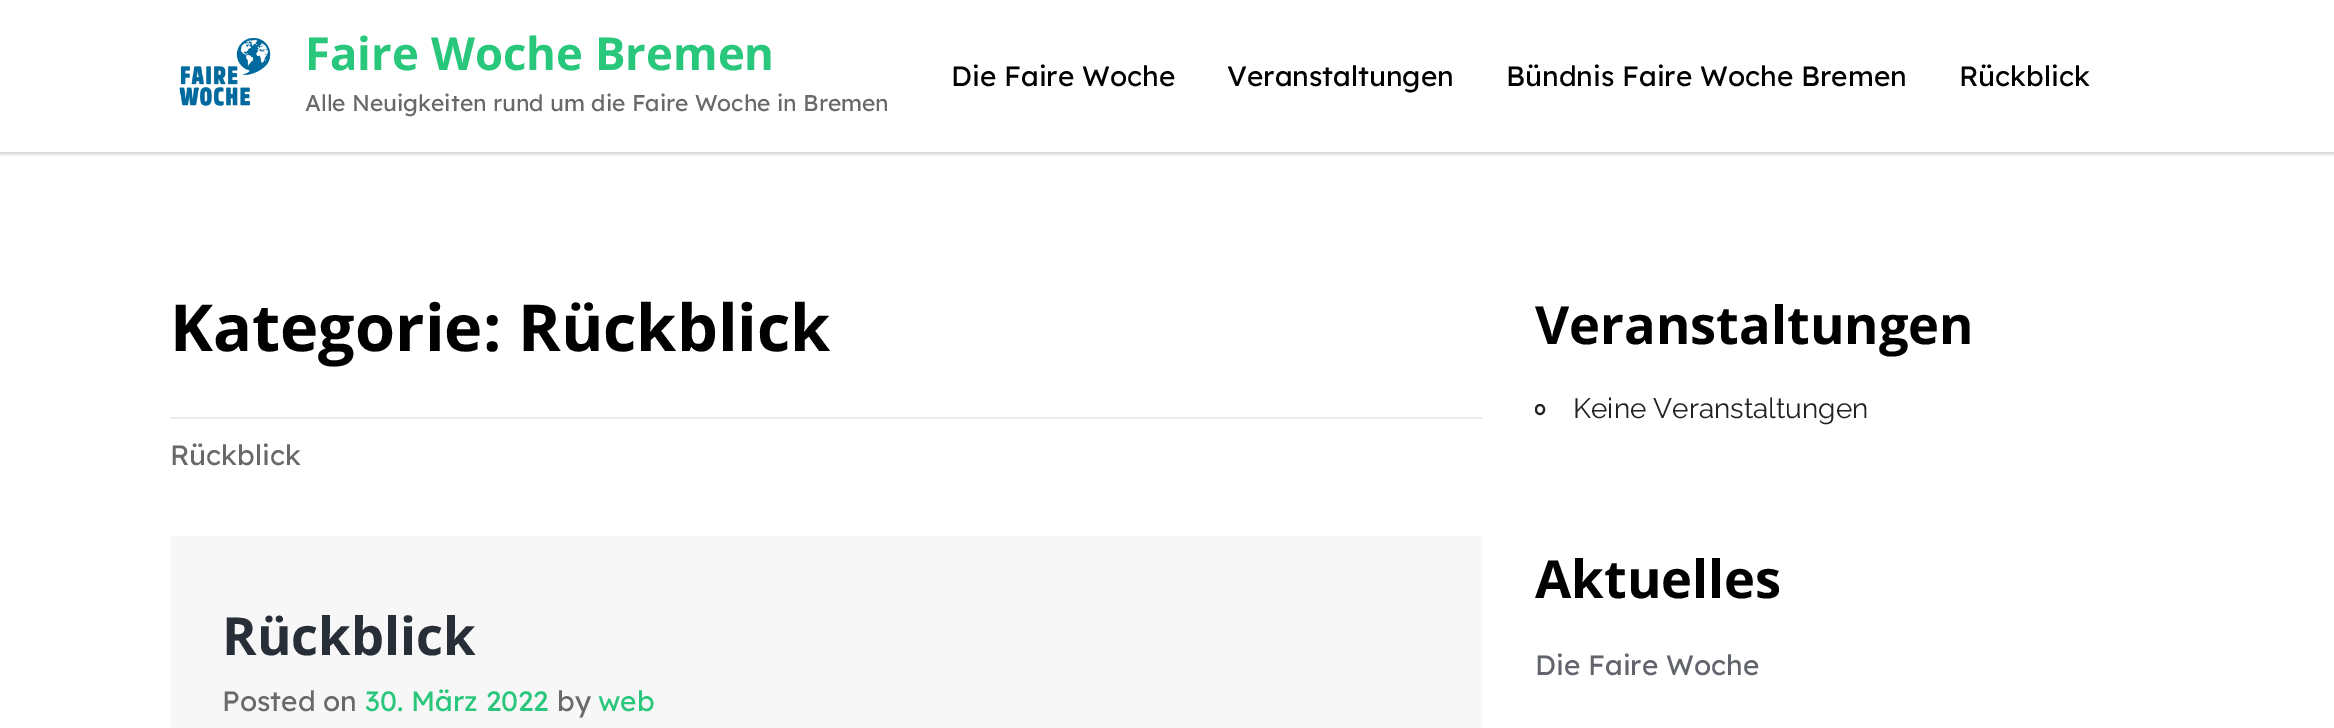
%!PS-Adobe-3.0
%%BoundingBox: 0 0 2334 728
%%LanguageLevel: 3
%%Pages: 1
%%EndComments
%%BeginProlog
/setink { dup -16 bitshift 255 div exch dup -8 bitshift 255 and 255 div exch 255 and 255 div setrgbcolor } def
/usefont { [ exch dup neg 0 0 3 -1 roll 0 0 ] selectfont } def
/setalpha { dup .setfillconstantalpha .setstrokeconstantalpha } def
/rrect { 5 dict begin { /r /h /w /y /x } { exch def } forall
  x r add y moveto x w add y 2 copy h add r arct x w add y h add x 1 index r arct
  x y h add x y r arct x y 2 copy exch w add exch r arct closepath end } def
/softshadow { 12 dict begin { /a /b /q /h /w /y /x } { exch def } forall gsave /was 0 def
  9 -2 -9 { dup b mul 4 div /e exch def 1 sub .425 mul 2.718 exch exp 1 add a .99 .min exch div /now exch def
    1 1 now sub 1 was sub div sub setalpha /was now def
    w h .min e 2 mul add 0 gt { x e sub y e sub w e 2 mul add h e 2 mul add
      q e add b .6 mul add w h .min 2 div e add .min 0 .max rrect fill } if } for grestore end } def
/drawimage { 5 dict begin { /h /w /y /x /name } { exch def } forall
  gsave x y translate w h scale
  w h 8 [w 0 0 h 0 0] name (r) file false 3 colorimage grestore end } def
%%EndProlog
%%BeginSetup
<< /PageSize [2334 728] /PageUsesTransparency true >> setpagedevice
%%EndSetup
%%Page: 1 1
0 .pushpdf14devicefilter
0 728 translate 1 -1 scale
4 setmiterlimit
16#FFFFFF setink
0 0 2334 728 rectfill
gsave
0 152 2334 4 rectclip
16#000000 setink
0 2 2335 152 0 2 0.1 softshadow
0 2 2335 152 0 2 0.1 softshadow
grestore
(img1.raw) 179 38 92 68 drawimage
/OpenSans-Bold 45.5 usefont
16#28C77B setink
305 70 moveto (Faire Woche Bremen) show
/Lexend-Regular 22.75 usefont
16#696969 setink
305 111 moveto (Alle Neuigkeiten rund um die Faire Woche in Bremen) show
/Lexend-Regular 28 usefont
16#000000 setink
[
    [(Die Faire Woche) 951 86]
    [(Veranstaltungen) 1227 86]
    [(Bündnis Faire Woche Bremen) 1506 86]
    [(Rückblick) 1959 86]
] { aload pop moveto show } forall
16#EEEEEE setink
170 417 1312 2 rectfill
/OpenSans-Bold 64.75 usefont
16#000000 setink
170 351 moveto (Kategorie: Rückblick) show
/Lexend-Regular 28 usefont
16#696969 setink
170 465 moveto (Rückblick) show
16#F7F7F7 setink
170 536 1312 192 rectfill
/OpenSans-Bold 52.5 usefont
16#272E37 setink
222 655 moveto (Rückblick) show
/Lexend-Regular 28 usefont
16#696969 setink
222 711 moveto (Posted on) show
16#28C77B setink
365 711 moveto (30. März 2022) show
16#696969 setink
557 711 moveto (by) show
16#28C77B setink
598 711 moveto (web) show
/OpenSans-Bold 52.5 usefont
16#000000 setink
1535 344 moveto (Veranstaltungen) show
16#212121 setink
2 setlinewidth
1536 405 8 9 4 rrect stroke
/Raleway-Regular 28 usefont
1573 418 moveto (Keine Veranstaltungen) show
/OpenSans-Bold 52.5 usefont
16#000000 setink
1535 598 moveto (Aktuelles) show
/Lexend-Regular 28 usefont
16#62646C setink
1535 675 moveto (Die Faire Woche) show
.poppdf14devicefilter showpage
%%EOF
